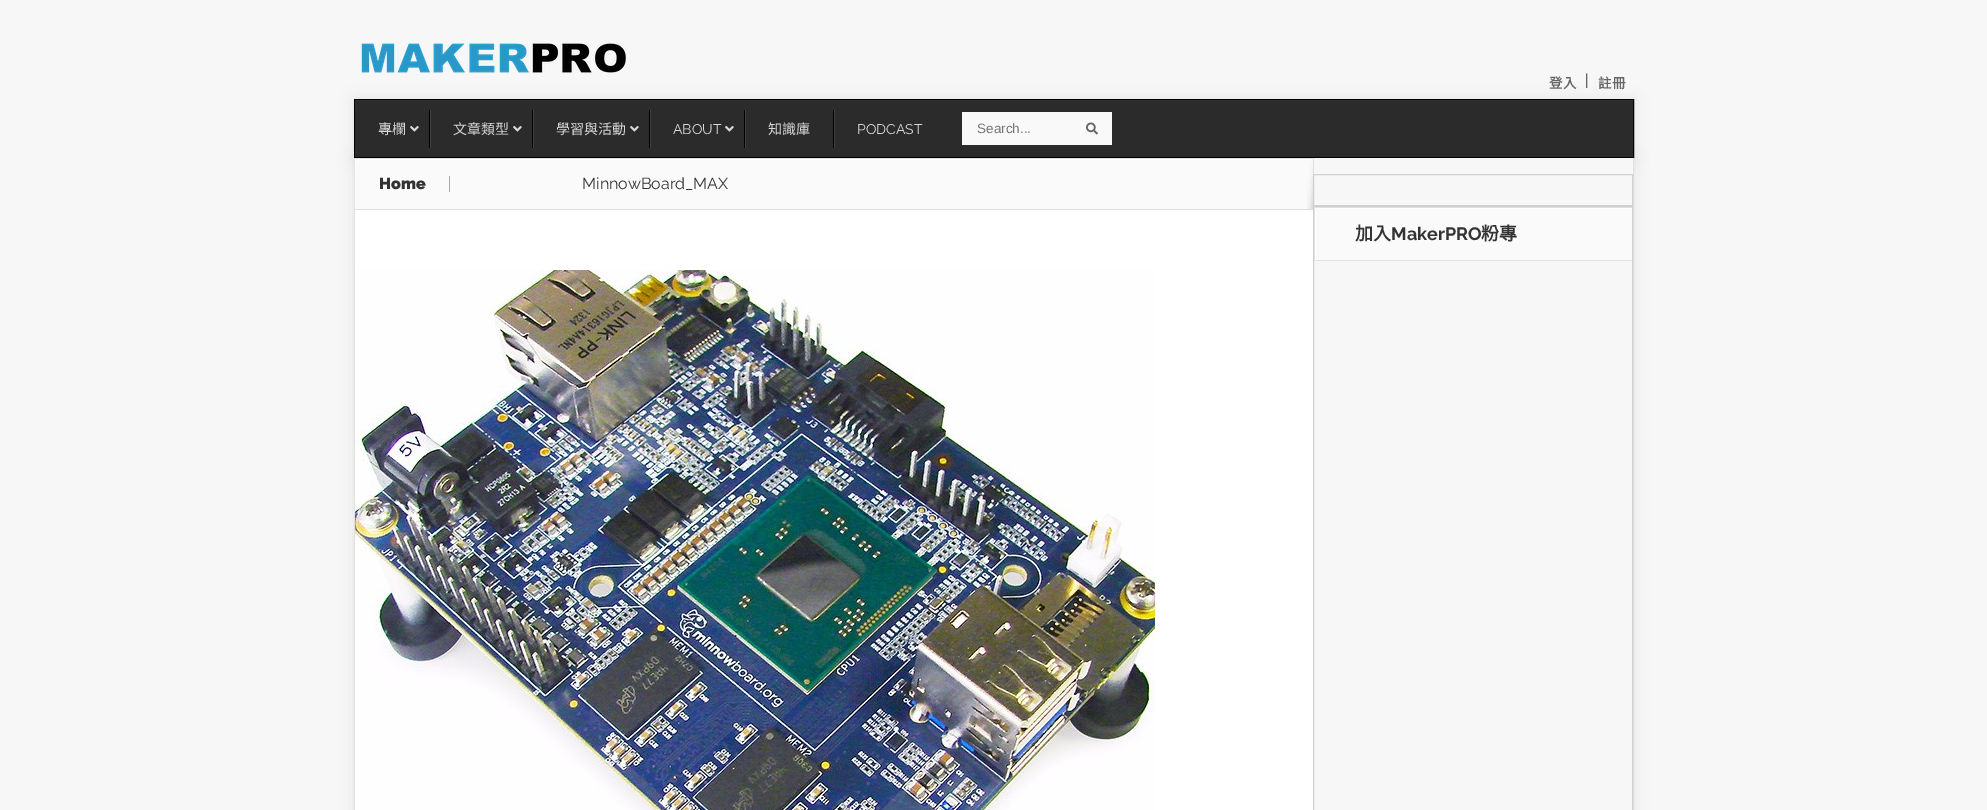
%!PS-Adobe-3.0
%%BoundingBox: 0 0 1987 810
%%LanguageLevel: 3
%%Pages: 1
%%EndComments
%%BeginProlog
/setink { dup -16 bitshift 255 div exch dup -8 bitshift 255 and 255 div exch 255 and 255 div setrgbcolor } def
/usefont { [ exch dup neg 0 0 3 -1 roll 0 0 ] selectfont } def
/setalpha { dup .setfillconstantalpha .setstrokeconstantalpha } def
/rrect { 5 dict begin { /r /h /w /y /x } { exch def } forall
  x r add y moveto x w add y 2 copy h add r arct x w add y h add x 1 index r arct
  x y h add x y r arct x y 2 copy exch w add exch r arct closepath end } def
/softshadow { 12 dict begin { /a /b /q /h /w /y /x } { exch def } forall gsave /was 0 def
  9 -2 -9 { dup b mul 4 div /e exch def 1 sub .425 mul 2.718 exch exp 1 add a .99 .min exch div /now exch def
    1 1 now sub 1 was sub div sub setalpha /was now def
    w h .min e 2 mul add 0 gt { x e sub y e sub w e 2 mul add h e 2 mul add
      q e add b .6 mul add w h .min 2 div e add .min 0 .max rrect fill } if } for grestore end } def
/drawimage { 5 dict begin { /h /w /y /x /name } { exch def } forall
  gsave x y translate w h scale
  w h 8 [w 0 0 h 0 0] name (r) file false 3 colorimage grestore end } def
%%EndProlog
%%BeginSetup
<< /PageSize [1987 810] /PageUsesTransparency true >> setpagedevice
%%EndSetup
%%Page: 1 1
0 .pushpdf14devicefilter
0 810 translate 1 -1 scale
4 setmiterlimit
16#F7F7F7 setink
0 0 1987 810 rectfill
(img1.raw) 361 43 265 30 drawimage
16#000000 setink
354 99 1280 59 0 7.5 0.07 softshadow
/NotoSansCJKTC-Bold 13.5 usefont
16#666666 setink
1549 88 moveto (登入) show
/Raleway-Regular 16 usefont
16#333333 setink
1585 86 moveto (|) show
/NotoSansCJKTC-Bold 13.5 usefont
16#666666 setink
1598 88 moveto (註冊) show
16#2B2B2B setink
356 101 1277 56 rectfill
gsave
355 100 1278 57 rectclip
16#404040 setink
256 1 moveto 1732 1 lineto 1732 256 lineto 256 256 lineto closepath 356 101 moveto 1634 101 lineto 1634 158 lineto 356 158 lineto closepath eofill
grestore
16#000000 setink
354.5 99.5 1279 58 rectstroke
354 158 1280 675 0 7.5 0.07 softshadow
16#2B2B2B setink
355 110 1 38 rectfill
/NotoSansCJKTC-Regular 14 usefont
16#D9D9D9 setink
378 134 moveto (專欄) show
(img2.raw) 410 126 9 6 drawimage
16#404040 setink
430 110 1 38 rectfill
16#000000 setink
429 110 1 38 rectfill
16#D9D9D9 setink
453 134 moveto (文章類型) show
(img2.raw) 513 126 9 6 drawimage
16#404040 setink
533 110 1 38 rectfill
16#000000 setink
532 110 1 38 rectfill
16#D9D9D9 setink
556 134 moveto (學習與活動) show
(img2.raw) 630 126 9 6 drawimage
16#404040 setink
650 110 1 38 rectfill
16#000000 setink
649 110 1 38 rectfill
/Raleway-Regular 14 usefont
16#D9D9D9 setink
673 134 moveto (ABOUT) show
(img2.raw) 725 126 9 6 drawimage
16#404040 setink
745 110 1 38 rectfill
16#000000 setink
744 110 1 38 rectfill
/NotoSansCJKTC-Regular 14 usefont
16#D9D9D9 setink
768 134 moveto (知識庫) show
16#404040 setink
834 110 1 38 rectfill
16#000000 setink
833 110 1 38 rectfill
/Raleway-Regular 14 usefont
16#D9D9D9 setink
857 134 moveto (PODCAST) show
16#F9F9F9 setink
962 112 150 33 rectfill
/LiberationSans-Regular 13.5 usefont
16#757575 setink
977 133 moveto (Search...) show
(img3.raw) 1086 122 12 13 drawimage
[
    [355 210 958 600 16#FFFFFF]
    [1633 158 1 652 16#E0E0E0]
    [354 158 1 652 16#E0E0E0]
    [1314 158 319 652 16#F7F7F7]
    [1313 158 1 16 16#E0E0E0]
    [356 160 957 49 16#FAFAFA]
] { aload pop setink rectfill } forall
gsave
355 159 958 50 rectclip
16#FFFFFF setink
256 60 moveto 1412 60 lineto 1412 308 lineto 256 308 lineto closepath 356 160 moveto 1314 160 lineto 1314 210 lineto 356 210 lineto closepath eofill
grestore
[
    [355 158 958 1 16#E0E0E0]
    [355 209 958 1 16#E0E0E0]
    [449 176 1 16 16#AAAAAA]
] { aload pop setink rectfill } forall
/Raleway-Black 16 usefont
16#333333 setink
379 189 moveto (Home) show
/Raleway-Regular 16 usefont
582 189 moveto (MinnowBoard_MAX) show
(img4.raw) 1307 161 6 48 drawimage
(img5.raw) 355 270 800 540 drawimage
16#D0D0D0 setink
1313.5 174.5 319 31 rectstroke
1313.5 206.5 319 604 rectstroke
16#FAFAFA setink
1316 209 316 51 rectfill
gsave
1315 208 317 52 rectclip
16#FFFFFF setink
1216 109 moveto 1731 109 lineto 1731 359 lineto 1216 359 lineto closepath 1316 209 moveto 1633 209 lineto 1633 261 lineto 1316 261 lineto closepath eofill
grestore
[
    [1314 207 318 1 16#E0E0E0]
    [1314 260 318 1 16#E0E0E0]
    [1314 207 1 54 16#E0E0E0]
] { aload pop setink rectfill } forall
/NotoSansCJKTC-Bold 18 usefont
16#333333 setink
1355 240 moveto (加入) show
/Raleway-Bold 18 usefont
1391 240 moveto (MakerPRO) show
/NotoSansCJKTC-Bold 18 usefont
1481 240 moveto (粉專) show
.poppdf14devicefilter showpage
%%EOF
